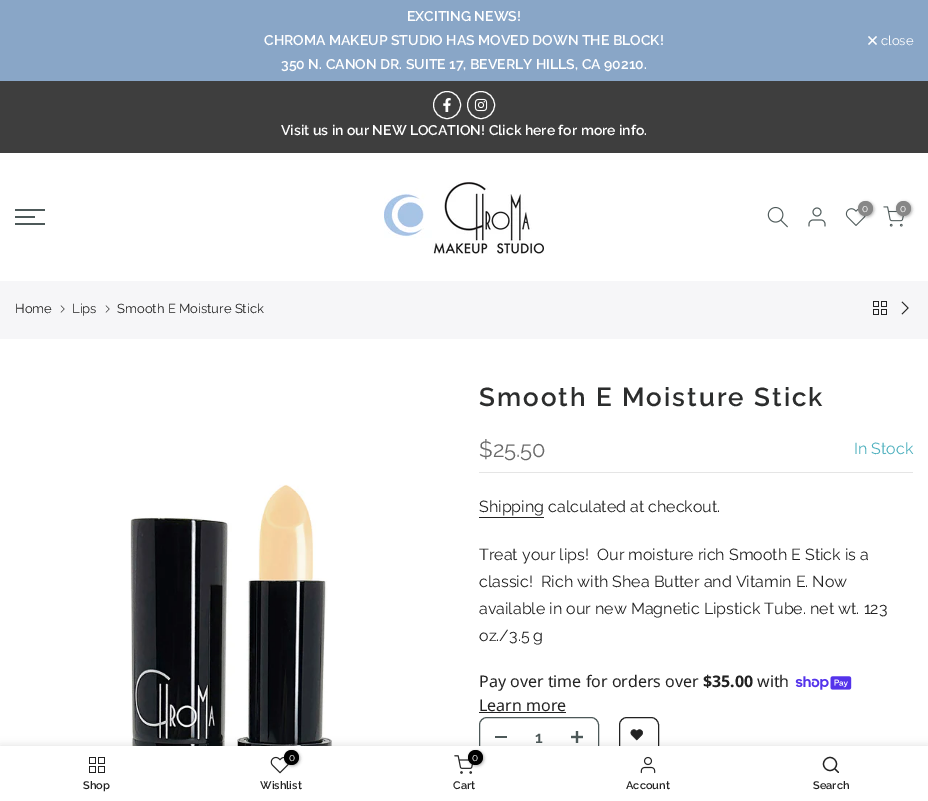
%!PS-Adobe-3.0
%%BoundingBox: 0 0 928 801
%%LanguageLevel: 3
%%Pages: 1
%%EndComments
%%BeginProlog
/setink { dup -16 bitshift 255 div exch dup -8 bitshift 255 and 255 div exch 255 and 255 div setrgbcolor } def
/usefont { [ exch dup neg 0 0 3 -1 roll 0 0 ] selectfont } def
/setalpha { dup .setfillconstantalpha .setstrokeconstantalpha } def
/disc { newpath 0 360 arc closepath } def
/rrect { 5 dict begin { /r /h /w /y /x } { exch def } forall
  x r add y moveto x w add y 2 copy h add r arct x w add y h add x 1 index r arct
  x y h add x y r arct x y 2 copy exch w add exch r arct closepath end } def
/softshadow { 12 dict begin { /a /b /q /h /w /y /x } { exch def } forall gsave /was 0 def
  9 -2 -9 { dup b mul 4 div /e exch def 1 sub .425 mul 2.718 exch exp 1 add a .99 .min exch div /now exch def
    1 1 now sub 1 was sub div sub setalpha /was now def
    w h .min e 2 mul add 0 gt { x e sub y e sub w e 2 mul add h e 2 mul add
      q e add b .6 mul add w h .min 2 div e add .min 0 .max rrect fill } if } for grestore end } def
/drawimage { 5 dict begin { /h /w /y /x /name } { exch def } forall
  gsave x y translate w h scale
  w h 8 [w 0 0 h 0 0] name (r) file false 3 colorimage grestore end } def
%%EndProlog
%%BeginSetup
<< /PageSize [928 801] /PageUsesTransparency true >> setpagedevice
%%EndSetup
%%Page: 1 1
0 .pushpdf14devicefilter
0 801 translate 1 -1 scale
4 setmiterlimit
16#FFFFFF setink
0 0 928 801 rectfill
16#89A6C7 setink
0 0 928 81 rectfill
/Raleway-SemiBold 14 usefont
16#FFFFFF setink
[
    [(EXCITING NEWS!) 407 21]
    [(CHROMA MAKEUP STUDIO HAS MOVED DOWN THE BLOCK!) 264 45]
    [(350 N. CANON DR. SUITE 17, BEVERLY HILLS, CA 90210.) 281 69]
] { aload pop moveto show } forall
1.1 setlinewidth
876.5 36.5 moveto 868.5 44.5 lineto 876.5 44.5 moveto 868.5 36.5 lineto stroke
/Raleway-Regular 13 usefont
881 45 moveto (close) show
16#3E3E3E setink
0 81 928 72 rectfill
16#FFFFFF setink
1 setlinewidth
447 105 13.5 disc stroke
(img1.raw) 443 98 8 14 drawimage
481 105 13.5 disc stroke
(img2.raw) 474 98 14 14 drawimage
/Raleway-SemiBold 14 usefont
281 135 moveto (Visit us in our NEW LOCATION! Click here for more info.) show
[
    [15 209 30 2 16#4D5959]
    [15 216 20 2 16#4D5959]
    [15 223 30 2 16#4D5959]
] { aload pop setink rectfill } forall
(img3.raw) 384 182 160 72 drawimage
(img4.raw) 767 206 21 22 drawimage
(img5.raw) 808 207 18 20 drawimage
(img6.raw) 845 208 21 18 drawimage
16#000000 setink
859 202 15 15 7.5 1.5 0.3 softshadow
16#878787 setink
865.5 208.5 7.5 disc fill
/Raleway-Regular 10 usefont
16#FFFFFF setink
862 212 moveto (0) show
(img7.raw) 883 206 21 21 drawimage
16#000000 setink
897 202 15 15 7.5 1.5 0.3 softshadow
16#878787 setink
903.5 208.5 7.5 disc fill
16#FFFFFF setink
900 212 moveto (0) show
16#F6F6F8 setink
0 281 928 58 rectfill
/Raleway-Regular 13 usefont
16#222222 setink
15 313 moveto (Home) show
(img8.raw) 60 305 5 8 drawimage
72 313 moveto (Lips) show
(img8.raw) 105 305 5 8 drawimage
117 313 moveto (Smooth E Moisture Stick) show
(img9.raw) 873 301 14 14 drawimage
(img10.raw) 901 301 8 14 drawimage
(img11.raw) 130 484 203 262 drawimage
/Raleway-SemiBold 26 usefont
16#2C2D2D setink
479 406 moveto 2 0 (Smooth E Moisture Stick) ashow
16#E5E5E5 setink
479 472 434 1 rectfill
/Raleway-Regular 22 usefont
16#696969 setink
479 457 moveto ($25.50) show
/Raleway-Regular 16 usefont
16#4EB0BE setink
854 454 moveto (In Stock) show
16#222222 setink
479 512 moveto (Shipping calculated at checkout.) show
479 517 65 1 rectfill
[
    [(Treat your lips!) 479 560]
    [(Our moisture rich Smooth E Stick is a) 597 560]
    [(classic!) 479 587]
    [(Rich with Shea Butter and Vitamin E. Now) 541 587]
    [(available in our new Magnetic Lipstick Tube. net wt. 123) 479 614]
    [(oz./3.5 g) 479 641]
] { aload pop moveto show } forall
/NotoSans-Regular 16 usefont
479 687 moveto (Pay over time for orders over) show
/NotoSans-Bold 16 usefont
703 687 moveto ($35.00) show
/NotoSans-Regular 16 usefont
757 687 moveto (with) show
(img12.raw) 795 676 57 14 drawimage
479 711 moveto (Learn more) show
479 712 87 1 rectfill
16#4D5959 setink
479.5 717.5 119 39 7.5 rrect stroke
495 736 12 2 rectfill
/Raleway-SemiBold 16 usefont
535 743 moveto (1) show
(img13.raw) 571 731 12 12 drawimage
16#222222 setink
619.5 717.5 39 39 7.5 rrect stroke
(img14.raw) 630 729 13 12 drawimage
16#000000 setink
0 746 928 55 0 4.5 0.12 softshadow
16#FFFFFF setink
0 746 928 55 rectfill
(img15.raw) 89 757 16 16 drawimage
/Raleway-SemiBold 11 usefont
16#222222 setink
83 789 moveto (Shop) show
(img16.raw) 270 756 19 18 drawimage
16#000000 setink
285 751 15 15 7.5 1.5 0.3 softshadow
291.5 757.5 7.5 disc fill
/Raleway-Regular 10 usefont
16#FFFFFF setink
289 761 moveto (0) show
/Raleway-SemiBold 11 usefont
16#222222 setink
260 789 moveto (Wishlist) show
(img17.raw) 454 755 19 19 drawimage
16#000000 setink
469 751 15 15 7.5 1.5 0.3 softshadow
475.5 757.5 7.5 disc fill
/Raleway-Regular 10 usefont
16#FFFFFF setink
472 761 moveto (0) show
/Raleway-SemiBold 11 usefont
16#222222 setink
453 789 moveto (Cart) show
(img18.raw) 640 756 16 18 drawimage
626 789 moveto (Account) show
1.2 setlinewidth
830 764 6.5 disc stroke
1 setlinecap
1 setlinejoin
838.5 772.5 moveto 835 769 lineto stroke
813 789 moveto (Search) show
.poppdf14devicefilter showpage
%%EOF
